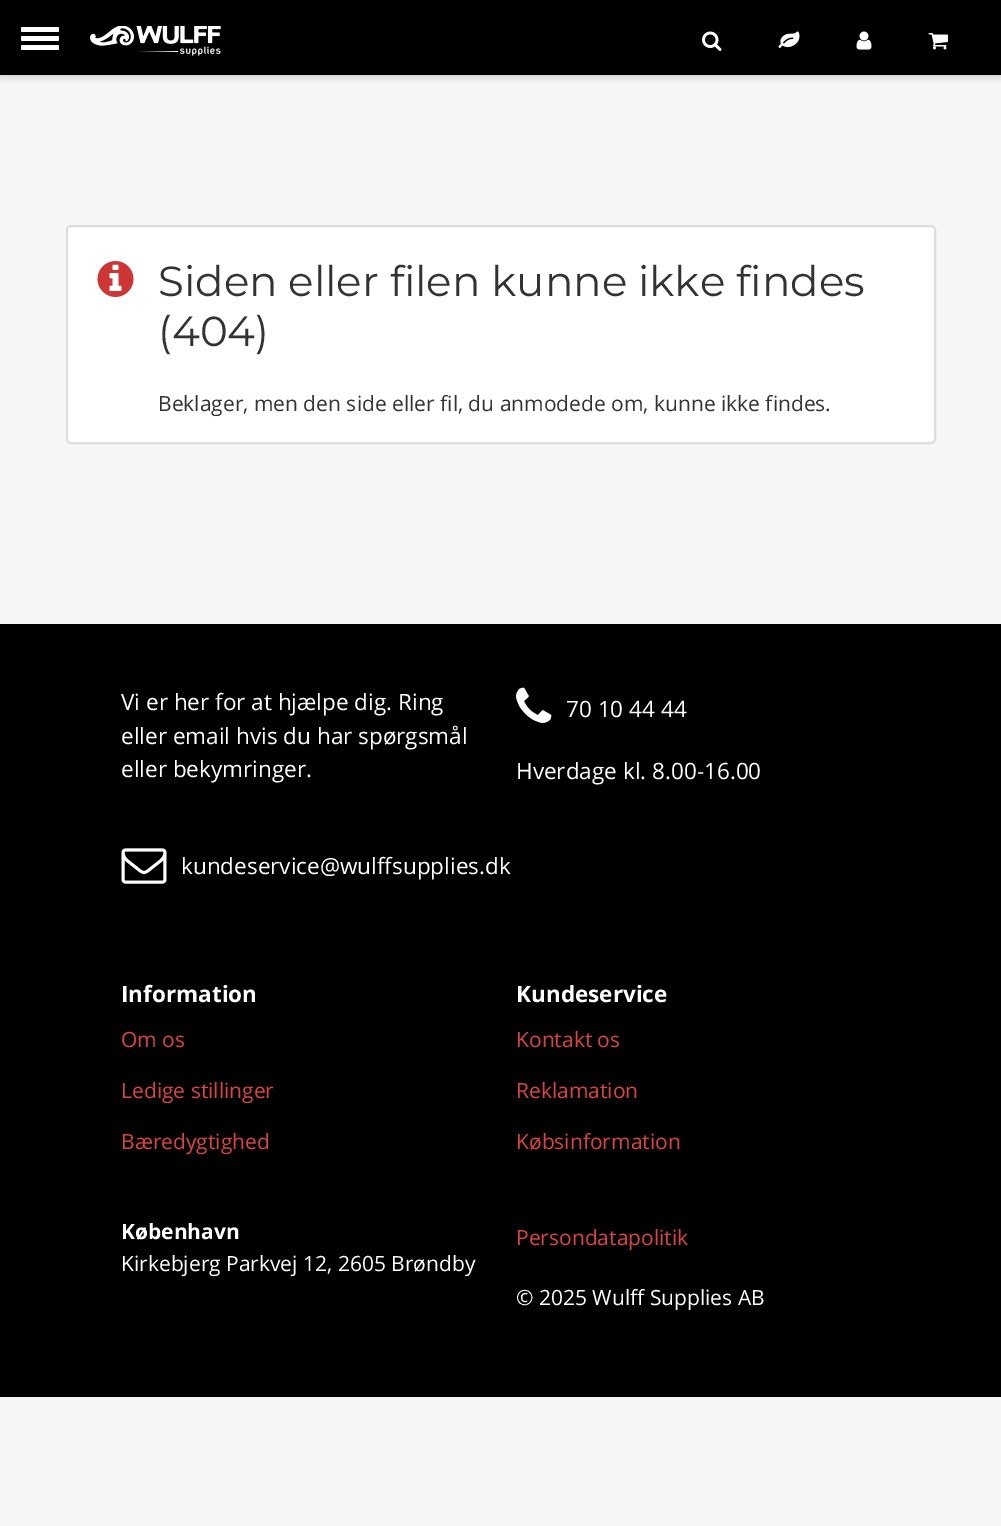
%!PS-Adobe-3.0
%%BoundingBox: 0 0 1001 1526
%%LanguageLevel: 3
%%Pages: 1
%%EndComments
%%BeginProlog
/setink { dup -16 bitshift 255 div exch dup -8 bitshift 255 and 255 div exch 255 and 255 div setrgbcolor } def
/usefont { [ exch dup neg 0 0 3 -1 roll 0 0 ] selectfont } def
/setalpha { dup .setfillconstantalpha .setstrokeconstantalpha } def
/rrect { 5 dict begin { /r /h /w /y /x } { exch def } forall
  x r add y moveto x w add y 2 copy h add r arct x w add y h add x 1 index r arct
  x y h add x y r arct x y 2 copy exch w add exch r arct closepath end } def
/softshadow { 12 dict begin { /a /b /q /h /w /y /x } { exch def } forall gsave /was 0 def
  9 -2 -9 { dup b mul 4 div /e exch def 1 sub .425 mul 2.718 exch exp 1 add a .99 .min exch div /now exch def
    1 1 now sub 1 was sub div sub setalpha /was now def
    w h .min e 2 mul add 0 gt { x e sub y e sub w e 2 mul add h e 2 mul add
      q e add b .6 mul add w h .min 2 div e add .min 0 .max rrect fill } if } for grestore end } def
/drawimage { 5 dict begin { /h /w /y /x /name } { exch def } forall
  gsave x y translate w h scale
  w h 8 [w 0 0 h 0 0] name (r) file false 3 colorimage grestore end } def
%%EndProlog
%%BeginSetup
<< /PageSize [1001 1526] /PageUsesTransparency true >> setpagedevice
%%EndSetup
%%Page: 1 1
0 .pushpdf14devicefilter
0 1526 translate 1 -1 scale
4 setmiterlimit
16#F6F6F6 setink
0 0 1001 1526 rectfill
16#000000 setink
0 2 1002 75 0 4 0.18 softshadow
0 0 1001 75 rectfill
16#FFFFFF setink
21 27 38 5 1.5 rrect fill
21 36 38 5 1.5 rrect fill
21 45 38 5 1.5 rrect fill
(img1.raw) 90 26 131 30 drawimage
(img2.raw) 702 31 20 20 drawimage
(img3.raw) 778 31 22 17 drawimage
(img4.raw) 856 31 16 19 drawimage
(img5.raw) 928 33 20 17 drawimage
66 225 870 219 5 rrect fill
0.15 setalpha
16#222426 setink
2 setlinewidth
67 226 868 217 4 rrect stroke
1 setalpha
(img6.raw) 97 261 37 36 drawimage
/Montserrat-Regular 42 usefont
16#333333 setink
158 296 moveto (Siden eller filen kunne ikke findes) show
158 346 moveto (\(404\)) show
/OpenSans-Regular 21 usefont
158 411 moveto (Beklager, men den side eller fil, du anmodede om, kunne ikke findes.) show
16#000000 setink
0 624 1001 773 rectfill
/OpenSans-Regular 22.5 usefont
16#FFFFFF setink
[
    [(Vi er her for at hjælpe dig. Ring) 121 710]
    [(eller email hvis du har spørgsmål) 121 744]
    [(eller bekymringer.) 121 777]
] { aload pop moveto show } forall
(img7.raw) 516 687 36 36 drawimage
566 717 moveto (70 10 44 44) show
516 779 moveto (Hverdage kl. 8.00-16.00) show
(img8.raw) 121 848 46 36 drawimage
181 874 moveto (kundeservice@wulffsupplies.dk) show
/OpenSans-Bold 22.5 usefont
121 1002 moveto (Information) show
/OpenSans-Regular 21 usefont
16#DC4444 setink
[
    [(Om os) 121 1047]
    [(Ledige stillinger) 121 1098]
    [(Bæredygtighed) 121 1149]
] { aload pop moveto show } forall
/OpenSans-Bold 22.5 usefont
16#FFFFFF setink
516 1002 moveto (Kundeservice) show
/OpenSans-Regular 21 usefont
16#DC4444 setink
[
    [(Kontakt os) 516 1047]
    [(Reklamation) 516 1098]
    [(Købsinformation) 516 1149]
] { aload pop moveto show } forall
/OpenSans-Bold 21 usefont
16#FFFFFF setink
121 1239 moveto (København) show
/OpenSans-Regular 21 usefont
121 1271 moveto (Kirkebjerg Parkvej 12, 2605 Brøndby) show
16#DC4444 setink
516 1245 moveto (Persondatapolitik) show
16#FFFFFF setink
516 1305 moveto (© 2025 Wulff Supplies AB) show
.poppdf14devicefilter showpage
%%EOF
